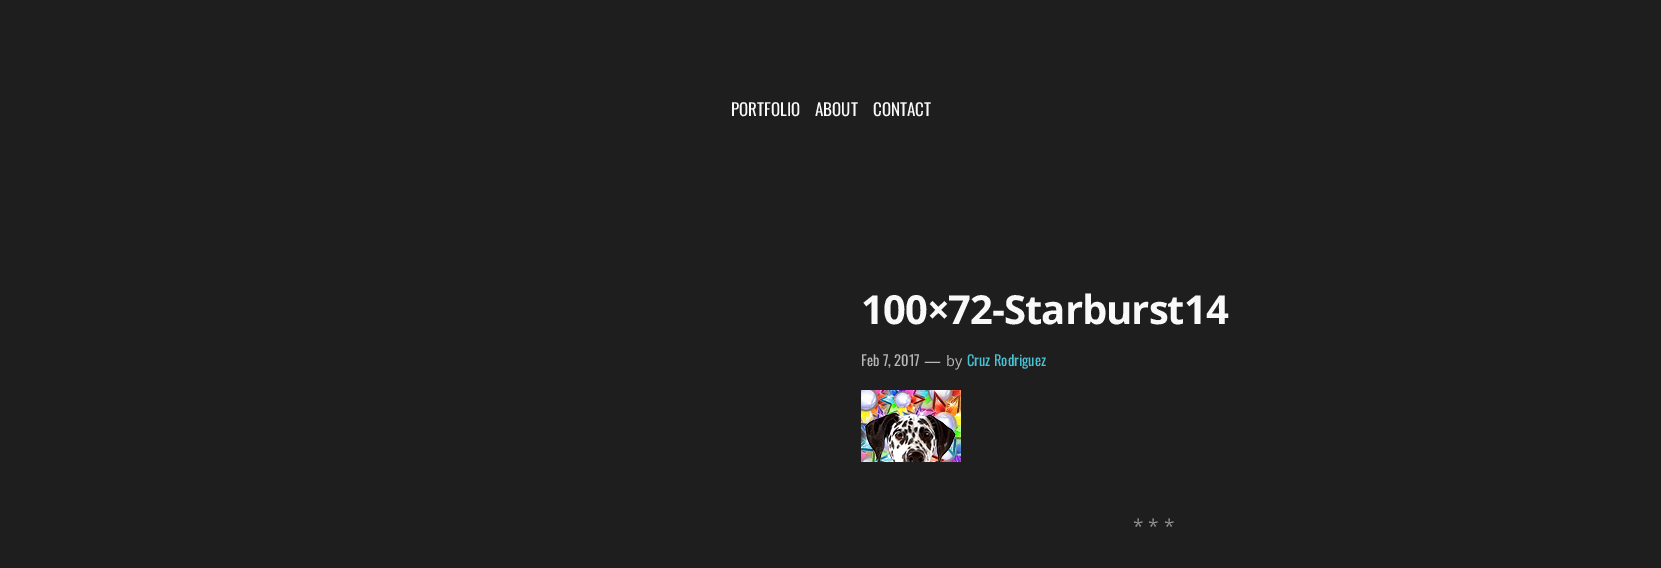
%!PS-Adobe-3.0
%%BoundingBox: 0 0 1661 568
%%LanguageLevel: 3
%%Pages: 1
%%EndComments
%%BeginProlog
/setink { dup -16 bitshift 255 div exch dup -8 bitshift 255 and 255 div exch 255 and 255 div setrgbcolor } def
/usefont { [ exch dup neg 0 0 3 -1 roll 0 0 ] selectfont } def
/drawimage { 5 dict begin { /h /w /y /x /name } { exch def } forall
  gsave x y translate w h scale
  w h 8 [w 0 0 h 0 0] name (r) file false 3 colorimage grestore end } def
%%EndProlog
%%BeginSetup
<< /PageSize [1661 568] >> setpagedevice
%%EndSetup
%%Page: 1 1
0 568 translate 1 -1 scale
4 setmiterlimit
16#1E1E1E setink
0 0 1661 568 rectfill
/Oswald-Regular 17 usefont
16#F9F9F9 setink
[
    [(PORTFOLIO) 731 116]
    [(ABOUT) 815 116]
    [(CONTACT) 873 116]
] { aload pop moveto show } forall
/OpenSans-Bold 40 usefont
861 324 moveto -1 0 (100×72-Starburst14) ashow
/Oswald-Regular 14.5 usefont
16#B7B7B7 setink
861 366 moveto (Feb 7, 2017) show
/OpenSans-Regular 17 usefont
924 367 moveto (—) show
/OpenSans-Regular 14.5 usefont
946 366 moveto (by) show
/Oswald-Regular 14.5 usefont
16#47C3D4 setink
967 366 moveto (Cruz Rodriguez) show
(img1.raw) 861 390 100 72 drawimage
/OpenSans-Regular 19 usefont
16#909090 setink
1133 533 moveto (* * *) show
showpage
%%EOF
